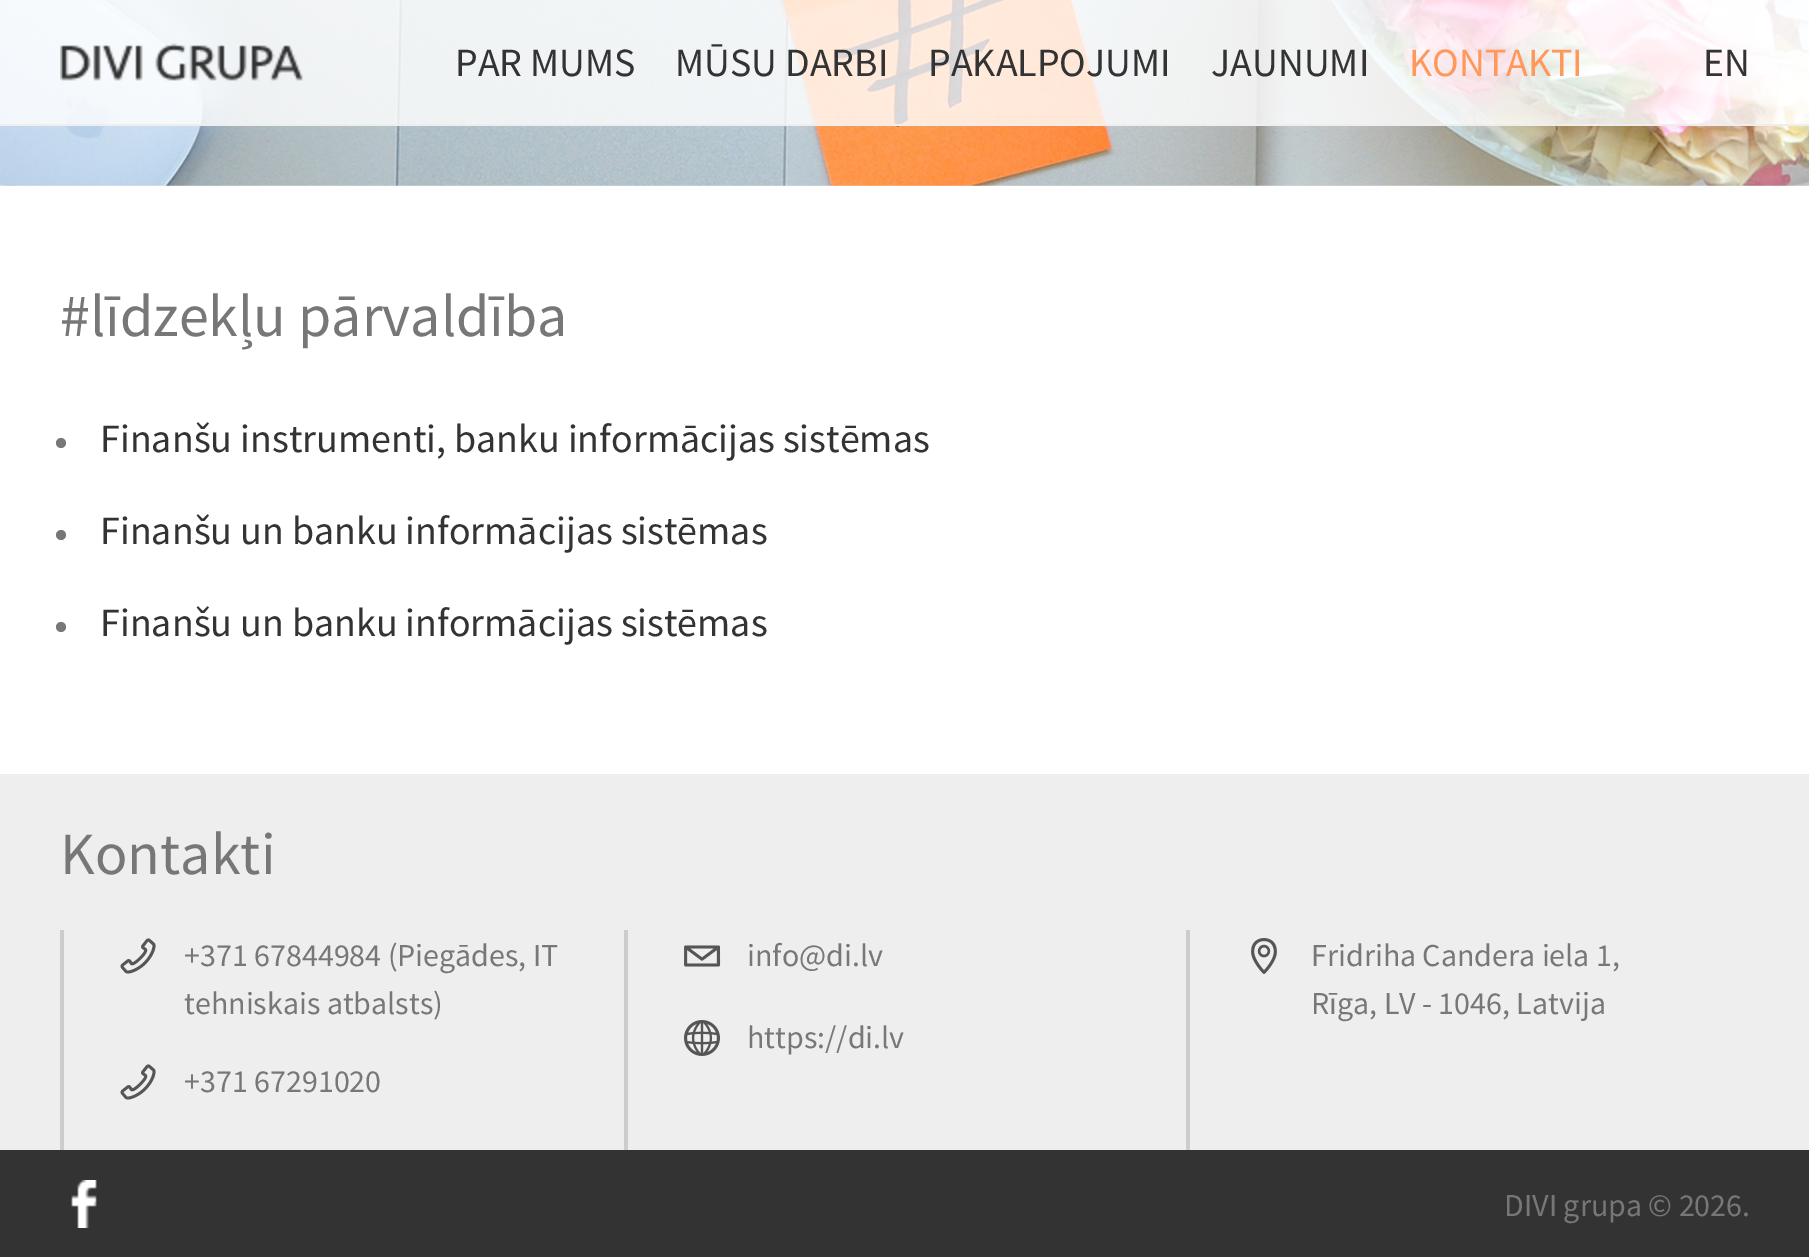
%!PS-Adobe-3.0
%%BoundingBox: 0 0 1809 1257
%%LanguageLevel: 3
%%Pages: 1
%%EndComments
%%BeginProlog
/setink { dup -16 bitshift 255 div exch dup -8 bitshift 255 and 255 div exch 255 and 255 div setrgbcolor } def
/usefont { [ exch dup neg 0 0 3 -1 roll 0 0 ] selectfont } def
/setalpha { dup .setfillconstantalpha .setstrokeconstantalpha } def
/disc { newpath 0 360 arc closepath } def
/drawimage { 5 dict begin { /h /w /y /x /name } { exch def } forall
  gsave x y translate w h scale
  w h 8 [w 0 0 h 0 0] name (r) file false 3 colorimage grestore end } def
%%EndProlog
%%BeginSetup
<< /PageSize [1809 1257] /PageUsesTransparency true >> setpagedevice
%%EndSetup
%%Page: 1 1
0 .pushpdf14devicefilter
0 1257 translate 1 -1 scale
4 setmiterlimit
16#FFFFFF setink
0 0 1809 1257 rectfill
(img1.raw) 0 0 1809 186 drawimage
0.8 setalpha
0 0 1809 124 rectfill
1 setalpha
16#EEEEEE setink
0 124 1809 2 rectfill
(img2.raw) 60 43 243 38 drawimage
/SourceSansPro-Regular 40 usefont
16#333333 setink
[
    [(PAR MUMS) 455 76]
    [(MŪSU DARBI) 675 76]
    [(PAKALPOJUMI) 928 76]
    [(JAUNUMI) 1211 76]
] { aload pop moveto show } forall
16#FF985A setink
1409 76 moveto (KONTAKTI) show
16#333333 setink
1703 76 moveto (EN) show
/SourceSansPro-Regular 60 usefont
16#777777 setink
60 336 moveto (#līdzekļu pārvaldība) show
61 443 5 disc fill
/SourceSansPro-Regular 40 usefont
16#333333 setink
100 452 moveto (Finanšu instrumenti, banku informācijas sistēmas) show
16#777777 setink
61 535 5 disc fill
16#333333 setink
100 544 moveto (Finanšu un banku informācijas sistēmas) show
16#777777 setink
61 627 5 disc fill
16#333333 setink
100 636 moveto (Finanšu un banku informācijas sistēmas) show
16#EEEEEE setink
0 774 1809 376 rectfill
/SourceSansPro-Regular 60 usefont
16#777777 setink
60 874 moveto (Kontakti) show
16#CCCCCC setink
60 930 4 220 rectfill
(img3.raw) 120 938 36 36 drawimage
/SourceSansPro-Regular 32 usefont
16#777777 setink
184 966 moveto (+371 67844984 \(Piegādes, IT) show
184 1014 moveto (tehniskais atbalsts\)) show
(img3.raw) 120 1064 36 36 drawimage
184 1092 moveto (+371 67291020) show
16#CCCCCC setink
624 930 4 220 rectfill
(img4.raw) 684 945 37 22 drawimage
16#777777 setink
747 966 moveto (info@di.lv) show
(img5.raw) 684 1020 36 36 drawimage
747 1048 moveto (https://di.lv) show
16#CCCCCC setink
1186 930 4 220 rectfill
(img6.raw) 1251 938 26 36 drawimage
16#777777 setink
1311 966 moveto (Fridriha Candera iela 1,) show
1311 1014 moveto (Rīga, LV - 1046, Latvija) show
16#333333 setink
0 1150 1809 107 rectfill
(img7.raw) 71 1180 26 48 drawimage
16#777777 setink
1504 1216 moveto (DIVI grupa © 2026.) show
.poppdf14devicefilter showpage
%%EOF
